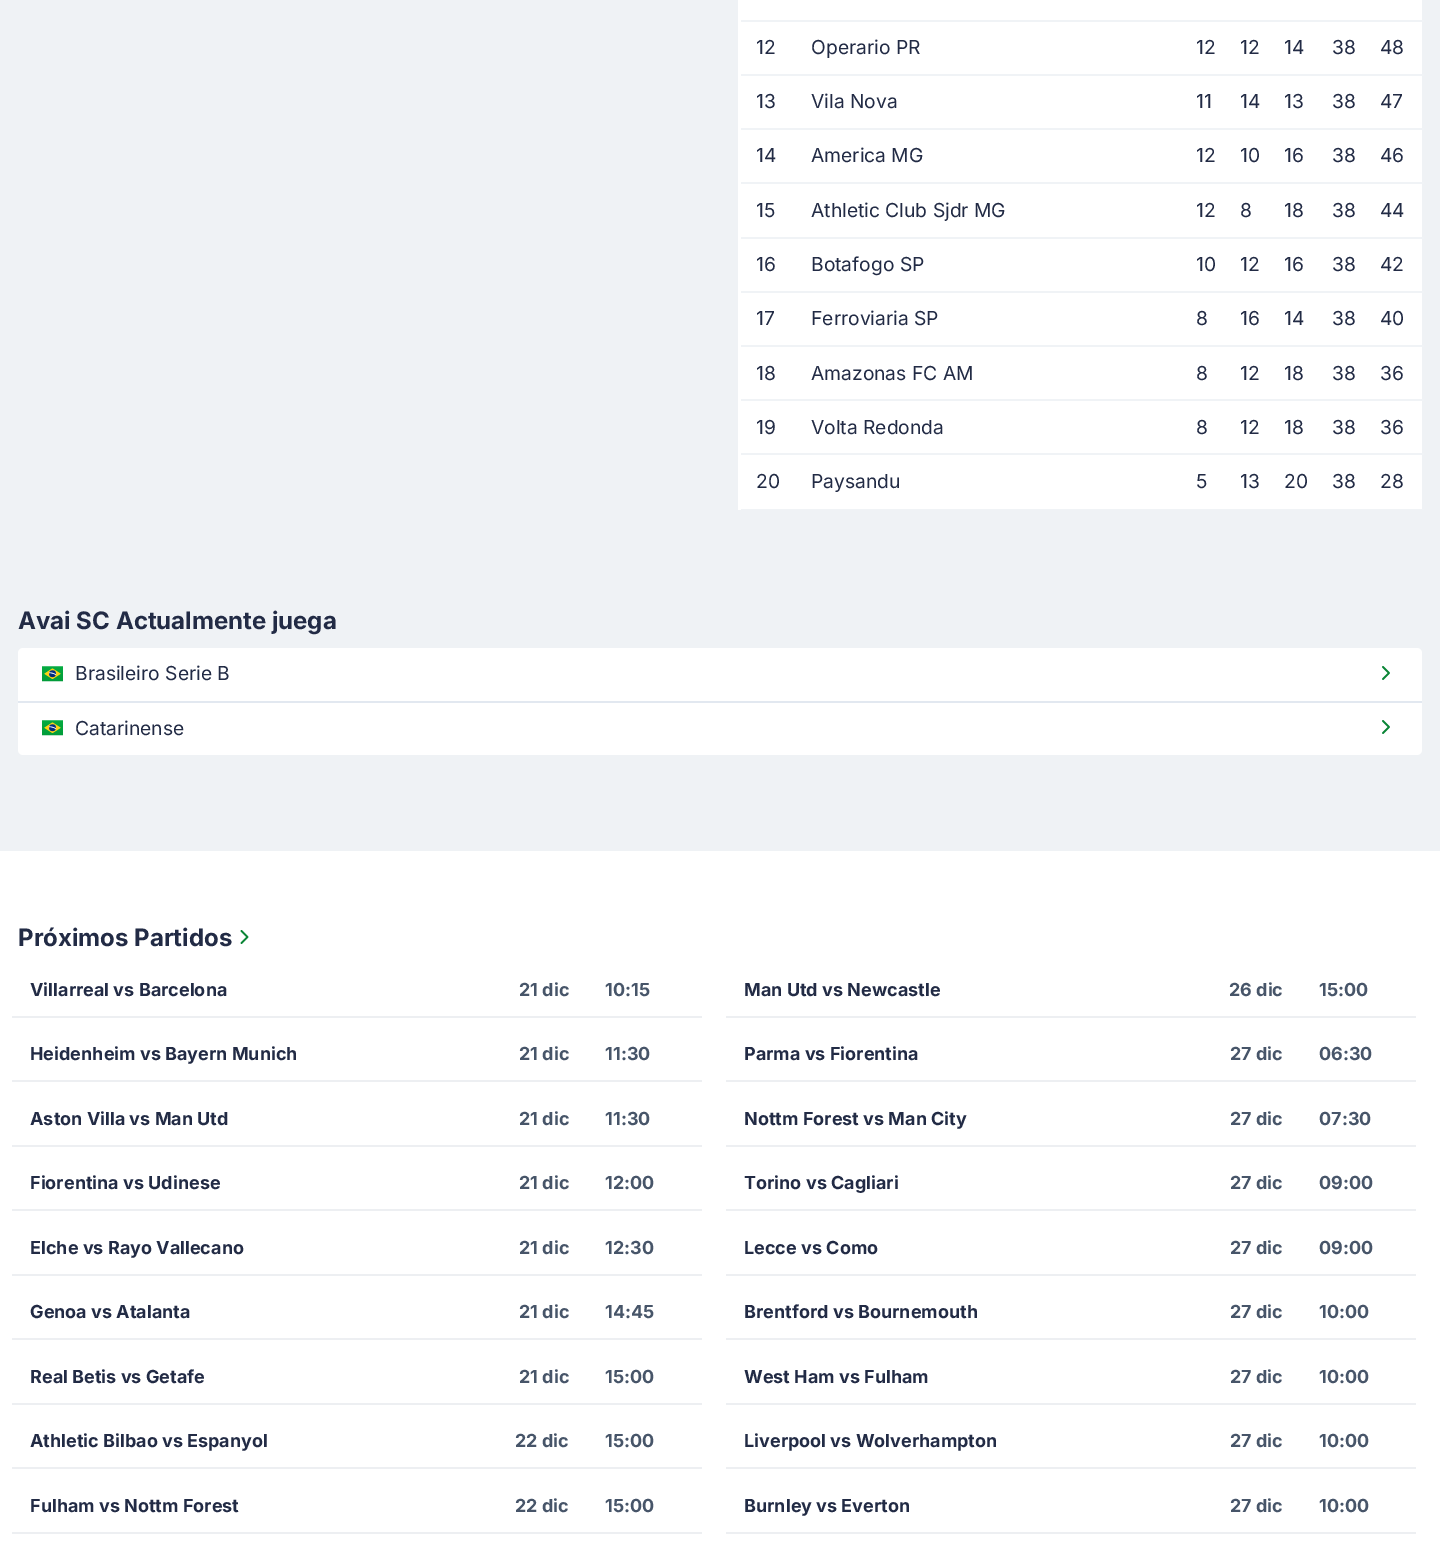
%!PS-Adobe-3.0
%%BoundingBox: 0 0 1440 1559
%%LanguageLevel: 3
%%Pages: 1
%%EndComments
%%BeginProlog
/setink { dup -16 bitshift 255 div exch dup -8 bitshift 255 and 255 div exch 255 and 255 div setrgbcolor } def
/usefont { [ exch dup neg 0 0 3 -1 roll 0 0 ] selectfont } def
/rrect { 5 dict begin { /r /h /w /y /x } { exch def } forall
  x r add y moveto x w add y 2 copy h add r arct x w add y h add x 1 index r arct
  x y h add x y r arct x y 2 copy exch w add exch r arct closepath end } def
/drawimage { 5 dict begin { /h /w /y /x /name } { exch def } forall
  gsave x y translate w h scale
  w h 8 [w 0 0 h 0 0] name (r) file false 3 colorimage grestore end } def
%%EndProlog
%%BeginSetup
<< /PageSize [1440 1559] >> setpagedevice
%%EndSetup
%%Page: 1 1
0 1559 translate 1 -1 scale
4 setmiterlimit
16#EFF2F5 setink
0 0 1440 1559 rectfill
16#FFFFFF setink
738 0 684 510 rectfill
16#F0F3F6 setink
741 20 683 2 rectfill
/Inter-Regular 19.25 usefont
16#222B45 setink
[
    [(12) 756 54]
    [(Operario PR) 811 54]
    [(12) 1196 54]
    [(12) 1240 54]
    [(14) 1284 54]
    [(38) 1332 54]
] { aload pop moveto show } forall
16#F0F3F6 setink
741 74 683 2 rectfill
16#222B45 setink
[
    [(48) 1380 54]
    [(13) 756 108]
    [(Vila Nova) 811 108]
    [(11) 1196 108]
    [(14) 1240 108]
    [(13) 1284 108]
    [(38) 1332 108]
] { aload pop moveto show } forall
16#F0F3F6 setink
741 128 683 2 rectfill
16#222B45 setink
[
    [(47) 1380 108]
    [(14) 756 162]
    [(America MG) 811 162]
    [(12) 1196 162]
    [(10) 1240 162]
    [(16) 1284 162]
    [(38) 1332 162]
] { aload pop moveto show } forall
16#F0F3F6 setink
741 182 683 2 rectfill
16#222B45 setink
[
    [(46) 1380 162]
    [(15) 756 217]
    [(Athletic Club Sjdr MG) 811 217]
    [(12) 1196 217]
    [(8) 1240 217]
    [(18) 1284 217]
    [(38) 1332 217]
] { aload pop moveto show } forall
16#F0F3F6 setink
741 237 683 2 rectfill
16#222B45 setink
[
    [(44) 1380 217]
    [(16) 756 271]
    [(Botafogo SP) 811 271]
    [(10) 1196 271]
    [(12) 1240 271]
    [(16) 1284 271]
    [(38) 1332 271]
] { aload pop moveto show } forall
16#F0F3F6 setink
741 291 683 2 rectfill
16#222B45 setink
[
    [(42) 1380 271]
    [(17) 756 325]
    [(Ferroviaria SP) 811 325]
    [(8) 1196 325]
    [(16) 1240 325]
    [(14) 1284 325]
    [(38) 1332 325]
] { aload pop moveto show } forall
16#F0F3F6 setink
741 345 683 2 rectfill
16#222B45 setink
[
    [(40) 1380 325]
    [(18) 756 380]
    [(Amazonas FC AM) 811 380]
    [(8) 1196 380]
    [(12) 1240 380]
    [(18) 1284 380]
    [(38) 1332 380]
] { aload pop moveto show } forall
16#F0F3F6 setink
741 399 683 2 rectfill
16#222B45 setink
[
    [(36) 1380 380]
    [(19) 756 434]
    [(Volta Redonda) 811 434]
    [(8) 1196 434]
    [(12) 1240 434]
    [(18) 1284 434]
    [(38) 1332 434]
] { aload pop moveto show } forall
16#F0F3F6 setink
741 453 683 2 rectfill
16#222B45 setink
[
    [(36) 1380 434]
    [(20) 756 488]
    [(Paysandu) 811 488]
    [(5) 1196 488]
    [(13) 1240 488]
    [(20) 1284 488]
    [(38) 1332 488]
] { aload pop moveto show } forall
16#F0F3F6 setink
741 509 683 1 rectfill
16#222B45 setink
1380 488 moveto (28) show
/Inter-Bold 24 usefont
18 629 moveto (Avai SC Actualmente juega) show
16#FFFFFF setink
18 648 1404 107 5 rrect fill
(img1.raw) 42 666 21 16 drawimage
/Inter-Regular 19.25 usefont
16#222B45 setink
75 680 moveto (Brasileiro Serie B) show
(img2.raw) 1382 666 8 14 drawimage
16#E2E8F0 setink
18 701 1404 2 rectfill
(img3.raw) 42 720 21 16 drawimage
16#222B45 setink
75 735 moveto (Catarinense) show
(img2.raw) 1382 720 8 14 drawimage
16#FFFFFF setink
0 851 1440 708 rectfill
/Inter-Bold 24 usefont
16#222B45 setink
18 946 moveto (Próximos Partidos) show
(img4.raw) 240 930 9 14 drawimage
/Inter-Bold 18 usefont
30 996 moveto (Villarreal vs Barcelona) show
16#475569 setink
519 996 moveto (21 dic) show
605 996 moveto (10:15) show
16#EDEFF2 setink
12 1016 690 2 rectfill
16#222B45 setink
30 1060 moveto (Heidenheim vs Bayern Munich) show
16#475569 setink
519 1060 moveto (21 dic) show
605 1060 moveto (11:30) show
16#EDEFF2 setink
12 1080 690 2 rectfill
16#222B45 setink
30 1125 moveto (Aston Villa vs Man Utd) show
16#475569 setink
519 1125 moveto (21 dic) show
605 1125 moveto (11:30) show
16#EDEFF2 setink
12 1145 690 2 rectfill
16#222B45 setink
30 1189 moveto (Fiorentina vs Udinese) show
16#475569 setink
519 1189 moveto (21 dic) show
605 1189 moveto (12:00) show
16#EDEFF2 setink
12 1209 690 2 rectfill
16#222B45 setink
30 1254 moveto (Elche vs Rayo Vallecano) show
16#475569 setink
519 1254 moveto (21 dic) show
605 1254 moveto (12:30) show
16#EDEFF2 setink
12 1274 690 2 rectfill
16#222B45 setink
30 1318 moveto (Genoa vs Atalanta) show
16#475569 setink
519 1318 moveto (21 dic) show
605 1318 moveto (14:45) show
16#EDEFF2 setink
12 1338 690 2 rectfill
16#222B45 setink
30 1383 moveto (Real Betis vs Getafe) show
16#475569 setink
519 1383 moveto (21 dic) show
605 1383 moveto (15:00) show
16#EDEFF2 setink
12 1403 690 2 rectfill
16#222B45 setink
30 1447 moveto (Athletic Bilbao vs Espanyol) show
16#475569 setink
515 1447 moveto (22 dic) show
605 1447 moveto (15:00) show
16#EDEFF2 setink
12 1467 690 2 rectfill
16#222B45 setink
30 1512 moveto (Fulham vs Nottm Forest) show
16#475569 setink
515 1512 moveto (22 dic) show
605 1512 moveto (15:00) show
16#EDEFF2 setink
12 1532 690 2 rectfill
16#222B45 setink
744 996 moveto (Man Utd vs Newcastle) show
16#475569 setink
1229 996 moveto (26 dic) show
1319 996 moveto (15:00) show
16#EDEFF2 setink
726 1016 690 2 rectfill
16#222B45 setink
744 1060 moveto (Parma vs Fiorentina) show
16#475569 setink
1230 1060 moveto (27 dic) show
1319 1060 moveto (06:30) show
16#EDEFF2 setink
726 1080 690 2 rectfill
16#222B45 setink
744 1125 moveto (Nottm Forest vs Man City) show
16#475569 setink
1230 1125 moveto (27 dic) show
1319 1125 moveto (07:30) show
16#EDEFF2 setink
726 1145 690 2 rectfill
16#222B45 setink
744 1189 moveto (Torino vs Cagliari) show
16#475569 setink
1230 1189 moveto (27 dic) show
1319 1189 moveto (09:00) show
16#EDEFF2 setink
726 1209 690 2 rectfill
16#222B45 setink
744 1254 moveto (Lecce vs Como) show
16#475569 setink
1230 1254 moveto (27 dic) show
1319 1254 moveto (09:00) show
16#EDEFF2 setink
726 1274 690 2 rectfill
16#222B45 setink
744 1318 moveto (Brentford vs Bournemouth) show
16#475569 setink
1230 1318 moveto (27 dic) show
1319 1318 moveto (10:00) show
16#EDEFF2 setink
726 1338 690 2 rectfill
16#222B45 setink
744 1383 moveto (West Ham vs Fulham) show
16#475569 setink
1230 1383 moveto (27 dic) show
1319 1383 moveto (10:00) show
16#EDEFF2 setink
726 1403 690 2 rectfill
16#222B45 setink
744 1447 moveto (Liverpool vs Wolverhampton) show
16#475569 setink
1230 1447 moveto (27 dic) show
1319 1447 moveto (10:00) show
16#EDEFF2 setink
726 1467 690 2 rectfill
16#222B45 setink
744 1512 moveto (Burnley vs Everton) show
16#475569 setink
1230 1512 moveto (27 dic) show
1319 1512 moveto (10:00) show
16#EDEFF2 setink
726 1532 690 2 rectfill
showpage
%%EOF
